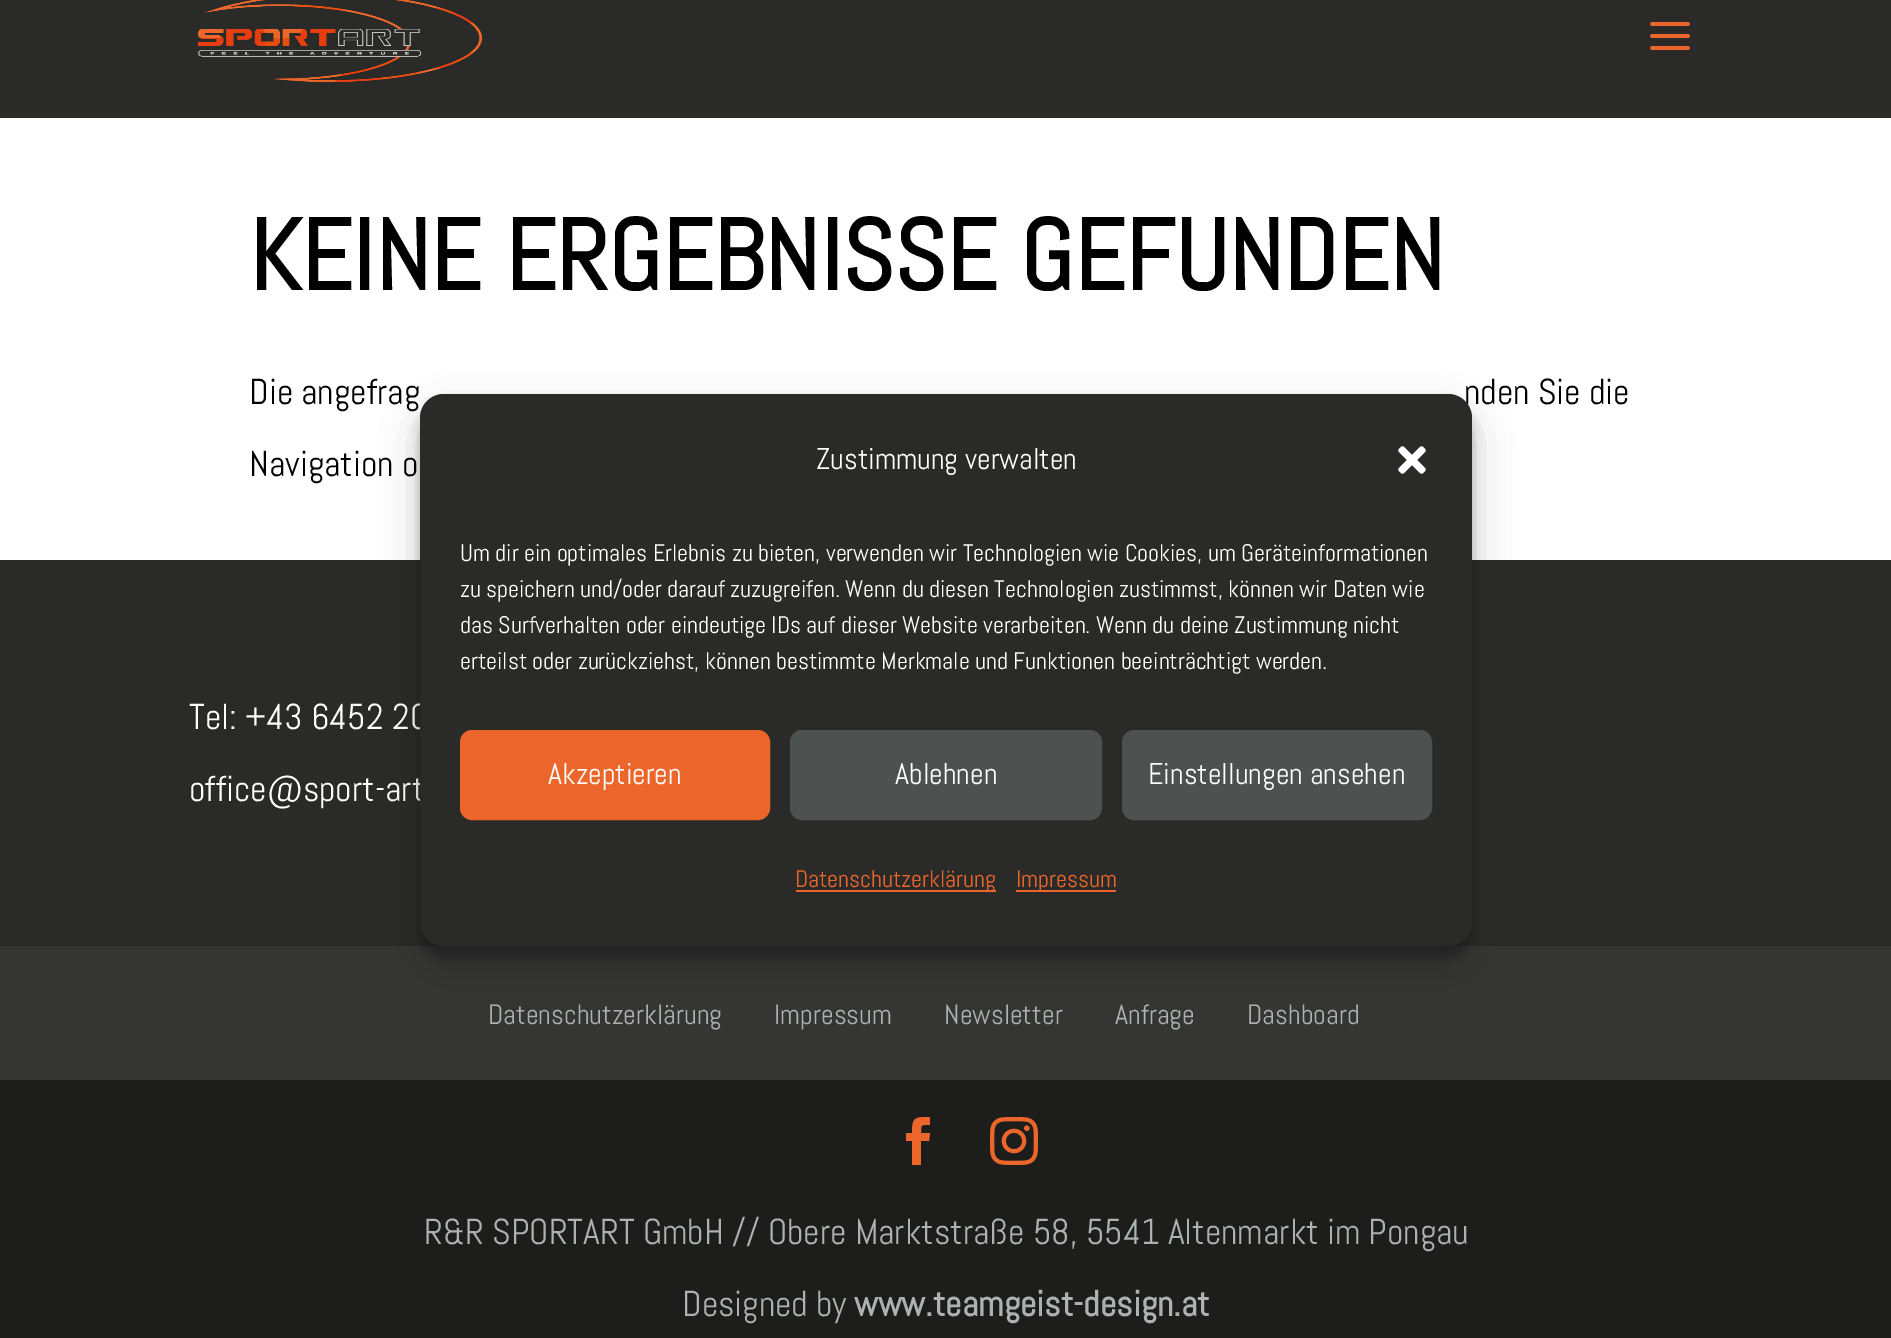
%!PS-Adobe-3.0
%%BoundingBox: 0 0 1891 1338
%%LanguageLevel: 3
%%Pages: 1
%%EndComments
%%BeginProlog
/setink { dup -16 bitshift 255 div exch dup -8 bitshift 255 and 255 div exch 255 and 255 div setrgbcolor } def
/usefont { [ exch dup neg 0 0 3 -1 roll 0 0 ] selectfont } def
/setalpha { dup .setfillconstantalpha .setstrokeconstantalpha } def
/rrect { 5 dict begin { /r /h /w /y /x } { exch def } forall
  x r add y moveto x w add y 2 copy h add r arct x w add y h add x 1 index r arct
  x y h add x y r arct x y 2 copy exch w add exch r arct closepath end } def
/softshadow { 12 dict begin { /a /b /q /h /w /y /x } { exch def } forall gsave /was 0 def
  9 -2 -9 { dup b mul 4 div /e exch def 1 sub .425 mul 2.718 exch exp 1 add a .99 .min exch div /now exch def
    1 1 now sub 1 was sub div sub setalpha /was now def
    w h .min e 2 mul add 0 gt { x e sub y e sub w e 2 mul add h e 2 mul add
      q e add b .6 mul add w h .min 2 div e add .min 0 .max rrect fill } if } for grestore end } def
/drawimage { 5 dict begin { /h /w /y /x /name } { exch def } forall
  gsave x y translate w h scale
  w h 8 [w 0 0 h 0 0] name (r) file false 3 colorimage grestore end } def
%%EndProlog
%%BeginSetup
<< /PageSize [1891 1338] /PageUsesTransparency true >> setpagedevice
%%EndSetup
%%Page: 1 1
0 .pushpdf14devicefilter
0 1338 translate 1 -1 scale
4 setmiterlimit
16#2A2A29 setink
0 0 1891 1338 rectfill
(img1.raw) 198 0 284 82 drawimage
(img2.raw) 1650 22 40 28 drawimage
16#FFFFFF setink
0 118 1891 442 rectfill
/Abel-Bold 100 usefont
16#000000 setink
249 290 moveto (KEINE ERGEBNISSE GEFUNDEN) show
/Abel-Regular 36 usefont
[
    [(Die angefrag) 249 404]
    [(nden Sie die) 1464 404]
    [(Navigation o) 249 476]
] { aload pop moveto show } forall
16#FFFFFF setink
189 729 moveto (Tel: +43 6452 20) show
189 801 moveto (office@sport-art) show
16#353534 setink
0 946 1891 134 rectfill
/Abel-Regular 28 usefont
16#ABB2B1 setink
[
    [(Datenschutzerklärung) 488 1024]
    [(Impressum) 774 1024]
    [(Newsletter) 944 1024]
    [(Anfrage) 1115 1024]
    [(Dashboard) 1247 1024]
] { aload pop moveto show } forall
16#1D1D1C setink
0 1080 1891 258 rectfill
16#EC662B setink
912 1165 moveto 921 1165 lineto 921 1141 lineto 929 1141 lineto 930 1133 lineto 921 1133 lineto 921 1124 921 1125 930 1125 curveto 930 1117 lineto 915 1117 912 1117 912 1133 curveto 906 1133 lineto 906 1141 lineto 912 1141 lineto closepath fill
(img3.raw) 990 1117 48 48 drawimage
/Abel-Regular 36 usefont
16#ABB2B1 setink
424 1244 moveto (R&R SPORTART GmbH // Obere Marktstraße 58, 5541 Altenmarkt im Pongau) show
682 1316 moveto (Designed by) show
/Abel-Bold 36 usefont
854 1316 moveto (www.teamgeist-design.at) show
16#000000 setink
420 406 1052 552 24 6 0.23 softshadow
420 414 1052 552 24 20 0.19 softshadow
16#2A2A29 setink
420 394 1052 552 24 rrect fill
/Abel-Regular 30 usefont
16#FFFFFF setink
816 469 moveto (Zustimmung verwalten) show
(img4.raw) 1398 446 28 28 drawimage
/Abel-Regular 24 usefont
[
    [(Um dir ein optimales Erlebnis zu bieten, verwenden wir Technologien wie Cookies, um Geräteinformationen) 460 561]
    [(zu speichern und/oder darauf zuzugreifen. Wenn du diesen Technologien zustimmst, können wir Daten wie) 460 597]
    [(das Surfverhalten oder eindeutige IDs auf dieser Website verarbeiten. Wenn du deine Zustimmung nicht) 460 633]
    [(erteilst oder zurückziehst, können bestimmte Merkmale und Funktionen beeinträchtigt werden.) 460 669]
] { aload pop moveto show } forall
16#EC662B setink
461 731 308 88 11 rrect gsave fill grestore
2 setlinewidth
stroke
/Abel-Regular 30 usefont
16#FFFFFF setink
548 784 moveto (Akzeptieren) show
16#4D5150 setink
791 731 310 88 11 rrect gsave fill grestore
stroke
16#FFFFFF setink
895 784 moveto (Ablehnen) show
16#4D5150 setink
1123 731 308 88 11 rrect gsave fill grestore
stroke
16#FFFFFF setink
1148 784 moveto (Einstellungen ansehen) show
16#EC662B setink
796 890 200 2 rectfill
/Abel-Regular 24 usefont
795 887 moveto (Datenschutzerklärung) show
1016 890 100 2 rectfill
1016 887 moveto (Impressum) show
.poppdf14devicefilter showpage
%%EOF
